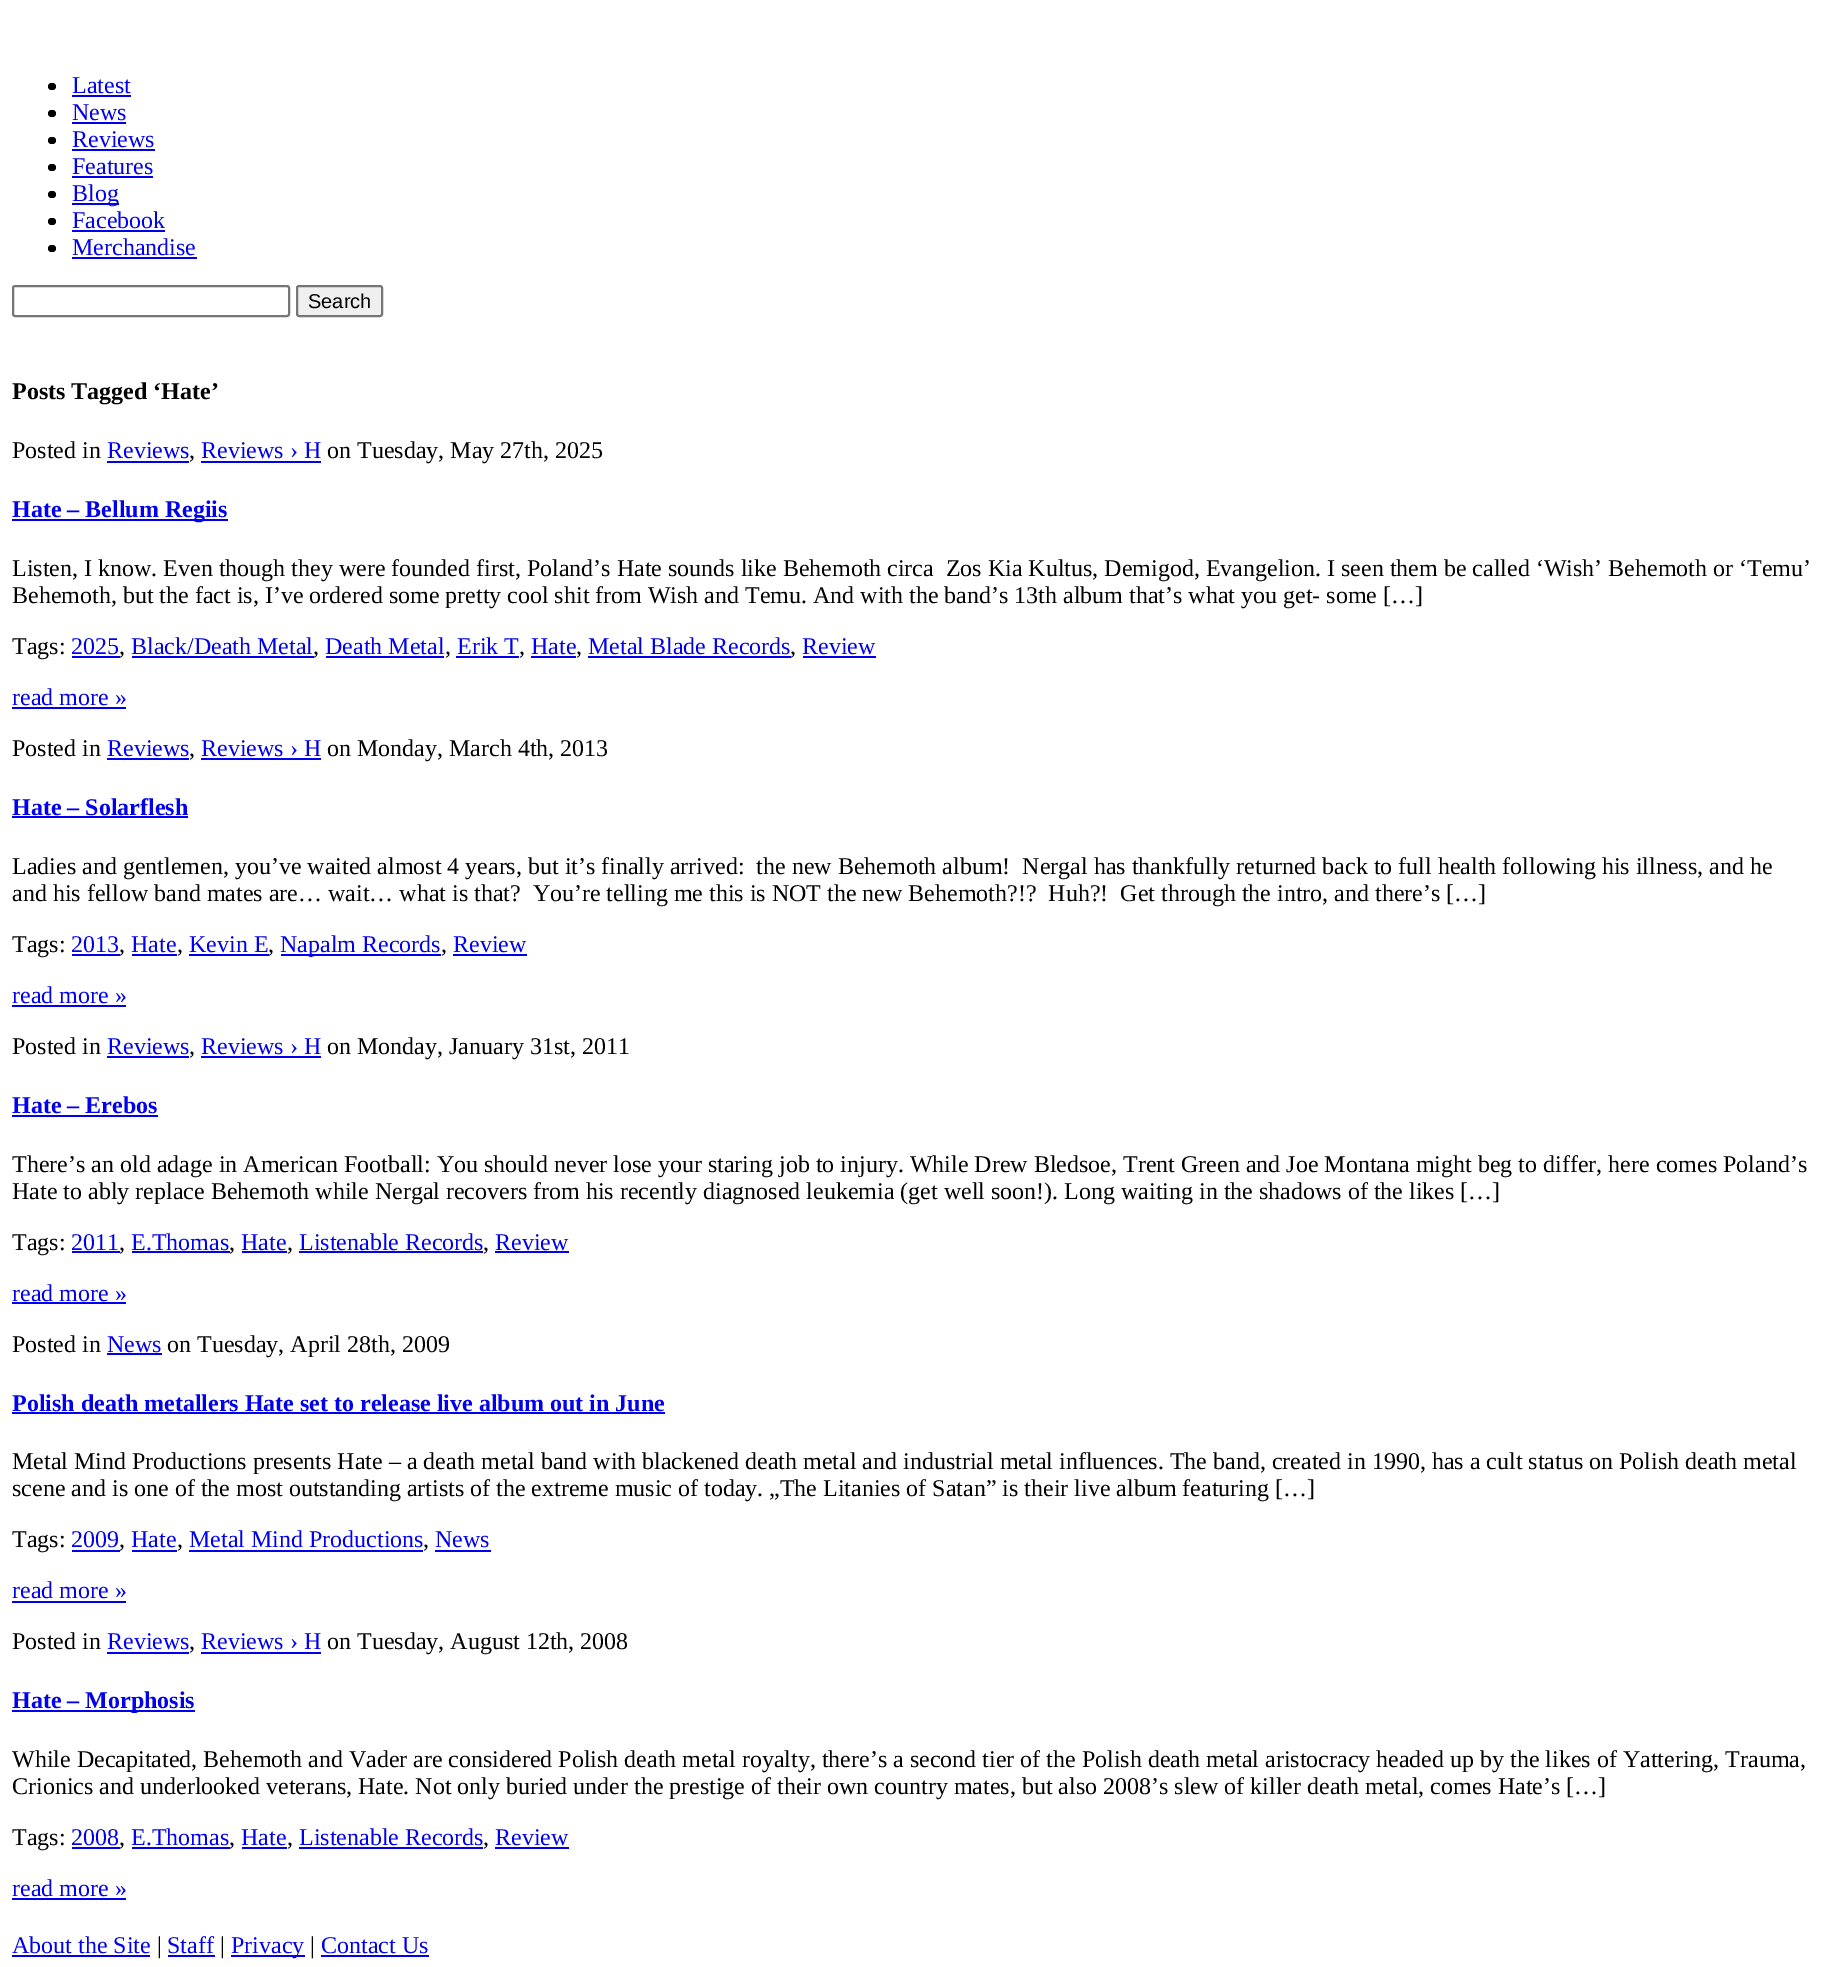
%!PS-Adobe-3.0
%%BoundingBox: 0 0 1823 1967
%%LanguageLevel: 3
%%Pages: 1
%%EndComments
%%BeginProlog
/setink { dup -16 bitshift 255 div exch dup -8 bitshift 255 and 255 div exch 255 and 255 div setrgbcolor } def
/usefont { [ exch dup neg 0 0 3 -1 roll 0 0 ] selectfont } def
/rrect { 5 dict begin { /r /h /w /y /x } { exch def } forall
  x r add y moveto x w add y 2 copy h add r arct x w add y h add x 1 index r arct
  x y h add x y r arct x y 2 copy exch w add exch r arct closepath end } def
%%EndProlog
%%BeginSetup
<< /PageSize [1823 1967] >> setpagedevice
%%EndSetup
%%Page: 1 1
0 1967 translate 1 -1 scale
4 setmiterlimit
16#FFFFFF setink
0 0 1823 1967 rectfill
16#000000 setink
48 83 8 7 3.5 rrect fill
/LiberationSerif-Regular 24 usefont
16#0000EE setink
72 93 moveto (Latest) show
72 95 59 2 rectfill
16#000000 setink
48 110 8 7 3.5 rrect fill
16#0000EE setink
72 120 moveto (News) show
72 122 54 2 rectfill
16#000000 setink
48 137 8 7 3.5 rrect fill
16#0000EE setink
72 147 moveto (Reviews) show
72 149 83 2 rectfill
16#000000 setink
48 164 8 7 3.5 rrect fill
16#0000EE setink
72 174 moveto (Features) show
72 176 81 2 rectfill
16#000000 setink
48 191 8 7 3.5 rrect fill
16#0000EE setink
72 203 47 2 rectfill
72 201 moveto (Blog) show
16#000000 setink
48 218 8 7 3.5 rrect fill
16#0000EE setink
72 228 moveto (Facebook) show
72 230 93 2 rectfill
16#000000 setink
48 245 8 7 3.5 rrect fill
16#0000EE setink
72 255 moveto (Merchandise) show
72 257 125 2 rectfill
16#767676 setink
2 setlinewidth
13 286 276 30 2 rrect stroke
16#EFEFEF setink
297 286 85 30 2 rrect gsave fill grestore
16#767676 setink
stroke
/LiberationSans-Regular 20 usefont
16#000000 setink
308 308 moveto (Search) show
/LiberationSerif-Bold 24 usefont
12 399 moveto (Posts Tagged ‘Hate’) show
/LiberationSerif-Regular 24 usefont
12 458 moveto (Posted in) show
16#0000EE setink
107 458 moveto (Reviews) show
107 461 82 2 rectfill
16#000000 setink
189 458 moveto (,) show
16#0000EE setink
201 458 moveto (Reviews › H) show
201 461 120 2 rectfill
16#000000 setink
327 458 moveto (on Tuesday, May 27th, 2025) show
16#0000EE setink
12 519 216 2 rectfill
/LiberationSerif-Bold 24 usefont
12 517 moveto (Hate – Bellum Regiis) show
/LiberationSerif-Regular 24 usefont
16#000000 setink
[
    [(Listen, I know. Even though they were founded first, Poland’s Hate sounds like Behemoth circa  Zos Kia Kultus, Demigod, Evangelion. I seen them be called ‘Wish’ Behemoth or ‘Temu’) 12 576]
    [(Behemoth, but the fact is, I’ve ordered some pretty cool shit from Wish and Temu. And with the band’s 13th album that’s what you get- some […]) 12 603]
    [(Tags:) 12 654]
] { aload pop moveto show } forall
16#0000EE setink
71 654 moveto (2025) show
72 656 48 2 rectfill
16#000000 setink
119 654 moveto (,) show
16#0000EE setink
131 654 moveto (Black/Death Metal) show
132 656 182 2 rectfill
16#000000 setink
313 654 moveto (,) show
16#0000EE setink
325 654 moveto (Death Metal) show
326 656 118 2 rectfill
16#000000 setink
445 654 moveto (,) show
16#0000EE setink
457 654 moveto (Erik T) show
456 656 63 2 rectfill
16#000000 setink
519 654 moveto (,) show
16#0000EE setink
531 654 moveto (Hate) show
531 656 45 2 rectfill
16#000000 setink
576 654 moveto (,) show
16#0000EE setink
588 654 moveto (Metal Blade Records) show
588 656 203 2 rectfill
16#000000 setink
790 654 moveto (,) show
16#0000EE setink
802 654 moveto (Review) show
803 656 73 2 rectfill
12 705 moveto (read more ») show
12 707 114 2 rectfill
16#000000 setink
12 756 moveto (Posted in) show
16#0000EE setink
107 756 moveto (Reviews) show
107 758 82 2 rectfill
16#000000 setink
189 756 moveto (,) show
16#0000EE setink
201 756 moveto (Reviews › H) show
201 758 120 2 rectfill
16#000000 setink
327 756 moveto (on Monday, March 4th, 2013) show
/LiberationSerif-Bold 24 usefont
16#0000EE setink
12 815 moveto (Hate – Solarflesh) show
12 816 176 2 rectfill
/LiberationSerif-Regular 24 usefont
16#000000 setink
[
    [(Ladies and gentlemen, you’ve waited almost 4 years, but it’s finally arrived:  the new Behemoth album!  Nergal has thankfully returned back to full health following his illness, and he) 12 874]
    [(and his fellow band mates are… wait… what is that?  You’re telling me this is NOT the new Behemoth?!?  Huh?!  Get through the intro, and there’s […]) 12 901]
    [(Tags:) 12 952]
] { aload pop moveto show } forall
16#0000EE setink
71 952 moveto (2013) show
72 954 48 2 rectfill
16#000000 setink
119 952 moveto (,) show
16#0000EE setink
131 952 moveto (Hate) show
132 954 45 2 rectfill
16#000000 setink
177 952 moveto (,) show
16#0000EE setink
189 952 moveto (Kevin E) show
189 954 80 2 rectfill
16#000000 setink
268 952 moveto (,) show
16#0000EE setink
281 954 160 2 rectfill
280 952 moveto (Napalm Records) show
16#000000 setink
441 952 moveto (,) show
16#0000EE setink
453 952 moveto (Review) show
453 954 74 2 rectfill
12 1003 moveto (read more ») show
12 1005 114 2 rectfill
16#000000 setink
12 1054 moveto (Posted in) show
16#0000EE setink
107 1054 moveto (Reviews) show
107 1056 82 2 rectfill
16#000000 setink
189 1054 moveto (,) show
16#0000EE setink
201 1054 moveto (Reviews › H) show
201 1056 120 2 rectfill
16#000000 setink
327 1054 moveto (on Monday, January 31st, 2011) show
/LiberationSerif-Bold 24 usefont
16#0000EE setink
12 1113 moveto (Hate – Erebos) show
12 1115 146 2 rectfill
/LiberationSerif-Regular 24 usefont
16#000000 setink
[
    [(There’s an old adage in American Football: You should never lose your staring job to injury. While Drew Bledsoe, Trent Green and Joe Montana might beg to differ, here comes Poland’s) 12 1172]
    [(Hate to ably replace Behemoth while Nergal recovers from his recently diagnosed leukemia \(get well soon!\). Long waiting in the shadows of the likes […]) 12 1199]
    [(Tags:) 12 1250]
] { aload pop moveto show } forall
16#0000EE setink
71 1250 moveto (2011) show
72 1251 48 2 rectfill
16#000000 setink
119 1250 moveto (,) show
16#0000EE setink
131 1250 moveto (E.Thomas) show
132 1251 98 2 rectfill
16#000000 setink
229 1250 moveto (,) show
16#0000EE setink
241 1250 moveto (Hate) show
242 1251 45 2 rectfill
16#000000 setink
287 1250 moveto (,) show
16#0000EE setink
299 1250 moveto (Listenable Records) show
299 1251 184 2 rectfill
16#000000 setink
483 1250 moveto (,) show
16#0000EE setink
495 1250 moveto (Review) show
495 1251 74 2 rectfill
12 1301 moveto (read more ») show
12 1302 114 2 rectfill
16#000000 setink
12 1352 moveto (Posted in) show
16#0000EE setink
107 1352 moveto (News) show
107 1353 55 2 rectfill
16#000000 setink
167 1352 moveto (on Tuesday, April 28th, 2009) show
/LiberationSerif-Bold 24 usefont
16#0000EE setink
12 1411 moveto (Polish death metallers Hate set to release live album out in June) show
12 1412 653 2 rectfill
/LiberationSerif-Regular 24 usefont
16#000000 setink
[
    [(Metal Mind Productions presents Hate – a death metal band with blackened death metal and industrial metal influences. The band, created in 1990, has a cult status on Polish death metal) 12 1469]
    [(scene and is one of the most outstanding artists of the extreme music of today. „The Litanies of Satan” is their live album featuring […]) 12 1496]
    [(Tags:) 12 1547]
] { aload pop moveto show } forall
16#0000EE setink
71 1547 moveto (2009) show
72 1550 48 2 rectfill
16#000000 setink
119 1547 moveto (,) show
16#0000EE setink
131 1547 moveto (Hate) show
132 1550 45 2 rectfill
16#000000 setink
177 1547 moveto (,) show
16#0000EE setink
189 1547 moveto (Metal Mind Productions) show
189 1550 234 2 rectfill
16#000000 setink
423 1547 moveto (,) show
16#0000EE setink
435 1547 moveto (News) show
435 1550 56 2 rectfill
12 1598 moveto (read more ») show
12 1601 114 2 rectfill
16#000000 setink
12 1649 moveto (Posted in) show
16#0000EE setink
107 1649 moveto (Reviews) show
107 1652 82 2 rectfill
16#000000 setink
189 1649 moveto (,) show
16#0000EE setink
201 1649 moveto (Reviews › H) show
201 1652 120 2 rectfill
16#000000 setink
327 1649 moveto (on Tuesday, August 12th, 2008) show
16#0000EE setink
12 1710 183 2 rectfill
/LiberationSerif-Bold 24 usefont
12 1708 moveto (Hate – Morphosis) show
/LiberationSerif-Regular 24 usefont
16#000000 setink
[
    [(While Decapitated, Behemoth and Vader are considered Polish death metal royalty, there’s a second tier of the Polish death metal aristocracy headed up by the likes of Yattering, Trauma,) 12 1767]
    [(Crionics and underlooked veterans, Hate. Not only buried under the prestige of their own country mates, but also 2008’s slew of killer death metal, comes Hate’s […]) 12 1794]
    [(Tags:) 12 1845]
] { aload pop moveto show } forall
16#0000EE setink
71 1845 moveto (2008) show
72 1847 48 2 rectfill
16#000000 setink
119 1845 moveto (,) show
16#0000EE setink
131 1845 moveto (E.Thomas) show
132 1847 98 2 rectfill
16#000000 setink
229 1845 moveto (,) show
16#0000EE setink
241 1845 moveto (Hate) show
242 1847 45 2 rectfill
16#000000 setink
287 1845 moveto (,) show
16#0000EE setink
299 1845 moveto (Listenable Records) show
299 1847 184 2 rectfill
16#000000 setink
483 1845 moveto (,) show
16#0000EE setink
495 1845 moveto (Review) show
495 1847 74 2 rectfill
12 1896 moveto (read more ») show
12 1898 114 2 rectfill
12 1953 moveto (About the Site) show
12 1955 138 2 rectfill
16#000000 setink
157 1953 moveto (|) show
16#0000EE setink
167 1953 moveto (Staff) show
168 1955 47 2 rectfill
16#000000 setink
220 1953 moveto (|) show
16#0000EE setink
231 1955 74 2 rectfill
231 1953 moveto (Privacy) show
16#000000 setink
310 1953 moveto (|) show
16#0000EE setink
321 1953 moveto (Contact Us) show
321 1955 108 2 rectfill
showpage
%%EOF
